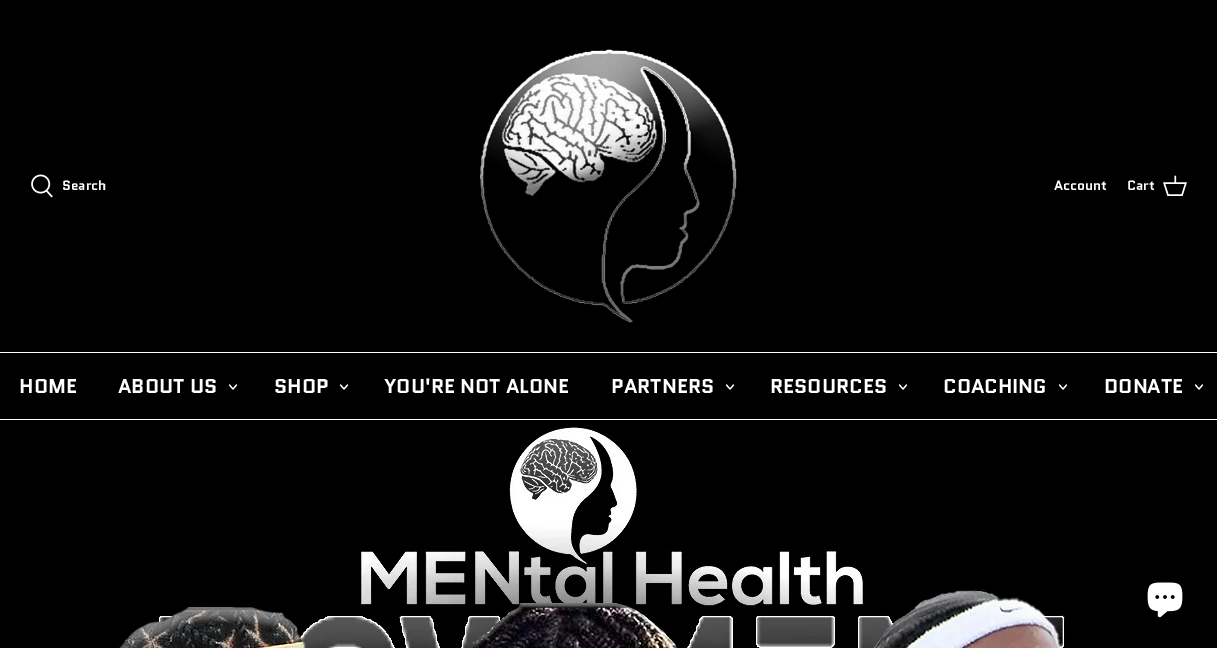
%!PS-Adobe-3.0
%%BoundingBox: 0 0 1217 648
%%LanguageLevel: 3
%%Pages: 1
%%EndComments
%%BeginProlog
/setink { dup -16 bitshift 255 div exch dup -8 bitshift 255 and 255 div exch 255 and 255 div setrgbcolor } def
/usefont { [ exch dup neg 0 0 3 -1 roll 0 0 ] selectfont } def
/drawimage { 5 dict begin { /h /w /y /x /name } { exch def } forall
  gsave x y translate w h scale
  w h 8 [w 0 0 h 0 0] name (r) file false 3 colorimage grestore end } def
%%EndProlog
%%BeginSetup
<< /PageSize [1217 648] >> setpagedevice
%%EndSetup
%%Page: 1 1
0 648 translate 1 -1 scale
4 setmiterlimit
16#000000 setink
0 0 1217 648 rectfill
16#FFFFFF setink
0 352 1217 1 rectfill
(img1.raw) 31 174 22 24 drawimage
/Quantico-Bold 13.5 usefont
62 190 moveto (Search) show
(img2.raw) 479 49 258 274 drawimage
1054 190 moveto (Account) show
1127 190 moveto (Cart) show
(img3.raw) 1163 175 24 21 drawimage
0 419 1217 1 rectfill
/Quantico-Bold 20 usefont
19 393 moveto (HOME) show
118 393 moveto (ABOUT US) show
1.2 setlinewidth
1 setlinecap
1 setlinejoin
229.5 385 moveto 233 389 lineto 236.5 385 lineto stroke
274 393 moveto (SHOP) show
340.5 385 moveto 344 389 lineto 347.5 385 lineto stroke
384 393 moveto (YOU'RE NOT ALONE) show
611 393 moveto (PARTNERS) show
726.5 385 moveto 730 389 lineto 733.5 385 lineto stroke
770 393 moveto (RESOURCES) show
899.5 385 moveto 903 389 lineto 906.5 385 lineto stroke
943 393 moveto (COACHING) show
1059.5 385 moveto 1063 389 lineto 1066.5 385 lineto stroke
1104 393 moveto (DONATE) show
1195.5 385 moveto 1199 389 lineto 1202.5 385 lineto stroke
(img4.raw) 118 424 947 224 drawimage
(img5.raw) 1147 582 36 36 drawimage
showpage
%%EOF
